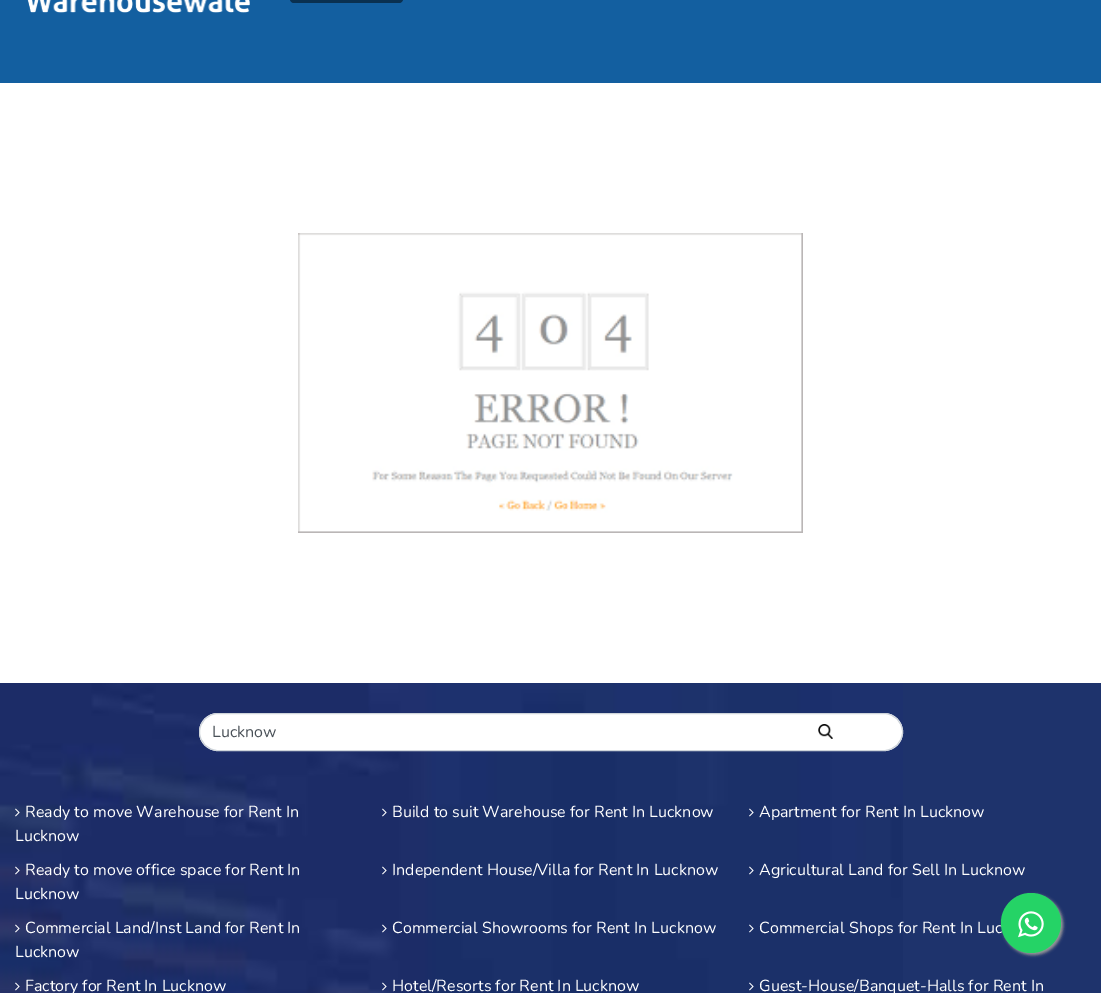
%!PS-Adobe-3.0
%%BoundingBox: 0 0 1101 993
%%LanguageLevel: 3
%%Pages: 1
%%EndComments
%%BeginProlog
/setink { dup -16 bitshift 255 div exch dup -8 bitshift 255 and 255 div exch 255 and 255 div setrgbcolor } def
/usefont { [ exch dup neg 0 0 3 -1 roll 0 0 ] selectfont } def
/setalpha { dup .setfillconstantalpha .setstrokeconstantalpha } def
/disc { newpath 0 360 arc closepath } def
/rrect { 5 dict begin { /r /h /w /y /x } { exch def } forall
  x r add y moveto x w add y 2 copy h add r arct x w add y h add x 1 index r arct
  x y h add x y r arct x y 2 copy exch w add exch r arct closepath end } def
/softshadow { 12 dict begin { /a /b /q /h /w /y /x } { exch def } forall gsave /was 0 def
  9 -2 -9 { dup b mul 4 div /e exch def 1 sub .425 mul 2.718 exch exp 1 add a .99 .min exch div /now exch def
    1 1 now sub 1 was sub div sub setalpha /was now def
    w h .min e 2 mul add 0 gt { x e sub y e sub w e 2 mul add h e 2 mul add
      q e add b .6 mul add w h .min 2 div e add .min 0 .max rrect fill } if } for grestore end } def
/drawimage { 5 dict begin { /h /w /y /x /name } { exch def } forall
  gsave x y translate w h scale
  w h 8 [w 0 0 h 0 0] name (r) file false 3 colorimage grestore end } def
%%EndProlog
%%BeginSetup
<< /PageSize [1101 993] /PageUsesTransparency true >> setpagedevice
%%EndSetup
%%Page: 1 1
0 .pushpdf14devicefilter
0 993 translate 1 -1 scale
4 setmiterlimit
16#FFFFFF setink
0 0 1101 993 rectfill
16#135FA0 setink
0 0 1101 83 rectfill
(img1.raw) 27 0 223 13 drawimage
16#0A3050 setink
290 -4 113 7 4 rrect fill
(img2.raw) 298 233 505 300 drawimage
16#1E336C setink
903 683 198 310 rectfill
(img3.raw) 0 683 903 310 drawimage
16#FFFFFF setink
199 713 704 38 19 rrect fill
(img4.raw) 818 724 15 15 drawimage
16#CED4DA setink
199.5 713.5 703 37 18.5 rrect stroke
/Nunito-Regular 16 usefont
16#495057 setink
212 737 moveto (Lucknow) show
(img5.raw) 15 808 5 9 drawimage
16#FFFFFF setink
25 817 moveto (Ready to move Warehouse for Rent In) show
15 841 moveto (Lucknow) show
(img6.raw) 382 808 5 9 drawimage
392 817 moveto (Build to suit Warehouse for Rent In Lucknow) show
(img7.raw) 749 808 5 9 drawimage
759 817 moveto (Apartment for Rent In Lucknow) show
(img8.raw) 15 866 5 9 drawimage
25 875 moveto (Ready to move office space for Rent In) show
15 899 moveto (Lucknow) show
(img6.raw) 382 866 5 9 drawimage
392 875 moveto (Independent House/Villa for Rent In Lucknow) show
(img7.raw) 749 866 5 9 drawimage
759 875 moveto (Agricultural Land for Sell In Lucknow) show
(img9.raw) 15 924 5 9 drawimage
25 933 moveto (Commercial Land/Inst Land for Rent In) show
15 957 moveto (Lucknow) show
(img10.raw) 382 924 5 9 drawimage
392 933 moveto (Commercial Showrooms for Rent In Lucknow) show
(img7.raw) 749 924 5 9 drawimage
759 933 moveto (Commercial Shops for Rent In Luc) show
(img11.raw) 15 982 5 9 drawimage
25 991 moveto (Factory for Rent In Lucknow) show
(img12.raw) 382 982 5 9 drawimage
392 991 moveto (Hotel/Resorts for Rent In Lucknow) show
(img7.raw) 749 982 5 9 drawimage
759 991 moveto (Guest-House/Banquet-Halls for Rent In) show
16#999999 setink
1003 895 60 60 30 1.5 1 softshadow
16#25D366 setink
1031 923 30 disc fill
(img13.raw) 1018 911 26 27 drawimage
.poppdf14devicefilter showpage
%%EOF
